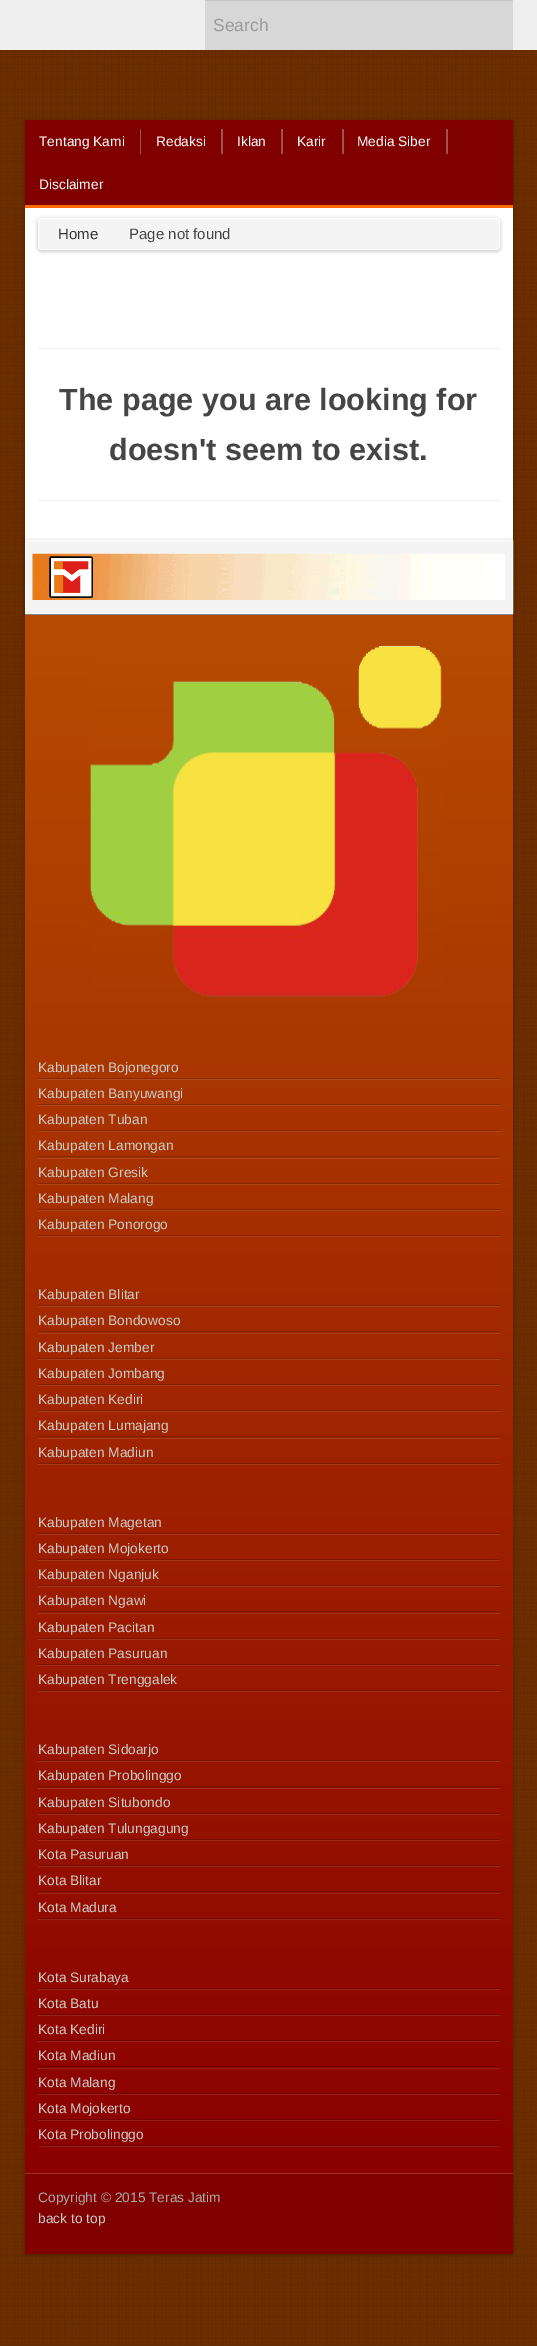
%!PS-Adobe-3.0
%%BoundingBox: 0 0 537 2346
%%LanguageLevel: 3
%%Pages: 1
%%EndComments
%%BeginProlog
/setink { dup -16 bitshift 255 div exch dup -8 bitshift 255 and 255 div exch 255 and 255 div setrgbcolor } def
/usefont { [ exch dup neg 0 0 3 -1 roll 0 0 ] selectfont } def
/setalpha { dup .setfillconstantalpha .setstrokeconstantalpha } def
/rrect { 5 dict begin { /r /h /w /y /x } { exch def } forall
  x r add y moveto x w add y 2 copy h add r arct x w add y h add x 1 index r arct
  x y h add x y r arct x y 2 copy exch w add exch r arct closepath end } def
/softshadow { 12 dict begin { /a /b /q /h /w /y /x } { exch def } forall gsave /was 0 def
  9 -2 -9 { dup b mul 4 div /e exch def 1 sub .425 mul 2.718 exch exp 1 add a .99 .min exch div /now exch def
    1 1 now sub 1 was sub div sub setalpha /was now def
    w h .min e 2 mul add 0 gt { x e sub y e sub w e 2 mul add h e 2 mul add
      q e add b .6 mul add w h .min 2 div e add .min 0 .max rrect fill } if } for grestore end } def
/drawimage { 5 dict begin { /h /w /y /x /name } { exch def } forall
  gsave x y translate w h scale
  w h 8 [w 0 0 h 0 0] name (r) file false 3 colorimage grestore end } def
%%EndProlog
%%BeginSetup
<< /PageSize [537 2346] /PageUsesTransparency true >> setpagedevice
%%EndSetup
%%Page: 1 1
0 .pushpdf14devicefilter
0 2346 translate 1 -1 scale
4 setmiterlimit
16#6E2E00 setink
0 0 537 2346 rectfill
(img1.raw) 0 50 537 2296 drawimage
[
    [0 0 537 50 16#EFEFEF]
    [205 1 308 49 16#D7D7D7]
    [205 0 308 1 16#C7C7C7]
] { aload pop setink rectfill } forall
/LiberationSans-Regular 17.5 usefont
16#999999 setink
213 31 moveto (Search) show
16#000000 setink
25 121 488 2134 0 2 0.3 softshadow
16#FFFFFF setink
25 208 488 407 rectfill
16#FA6800 setink
25 205 moveto 25 208 lineto 513 208 lineto 513 123 lineto 512 123 lineto 512 205 lineto closepath fill
16#800000 setink
25 120 488 85 rectfill
16#A64D4D setink
25 154 moveto 141 154 lineto 141 129 lineto 140 129 lineto 140 154 lineto closepath fill
16#740404 setink
139 129 1 25 rectfill
/LiberationSans-Regular 13.75 usefont
16#FFFFFF setink
39 146 moveto (Tentang Kami) show
16#A64D4D setink
141 154 moveto 223 154 lineto 223 129 lineto 221 129 lineto 221 154 lineto closepath fill
16#740404 setink
220 129 1 25 rectfill
16#FFFFFF setink
156 146 moveto (Redaksi) show
16#A64D4D setink
223 154 moveto 283 154 lineto 283 129 lineto 281 129 lineto 281 154 lineto closepath fill
16#740404 setink
280 129 1 25 rectfill
16#FFFFFF setink
237 146 moveto (Iklan) show
16#A64D4D setink
283 154 moveto 344 154 lineto 344 129 lineto 342 129 lineto 342 154 lineto closepath fill
16#740404 setink
341 129 1 25 rectfill
16#FFFFFF setink
297 146 moveto (Karir) show
16#A64D4D setink
344 154 moveto 448 154 lineto 448 129 lineto 446 129 lineto 446 154 lineto closepath fill
16#740404 setink
445 129 1 25 rectfill
16#FFFFFF setink
357 146 moveto (Media Siber) show
39 189 moveto (Disclaimer) show
16#000000 setink
38 219 462 32 4 2 0.3 softshadow
16#F4F4F4 setink
38.5 218.5 461 31 3.5 rrect gsave fill grestore
16#FFFFFF setink
stroke
/LiberationSans-Regular 15 usefont
16#333333 setink
58 239 moveto (Home) show
16#454545 setink
129 239 moveto (Page not found) show
16#EEEEEE setink
38 348 462 1 rectfill
/LiberationSans-Bold 30.6 usefont
16#454545 setink
59 410 moveto (The page you are looking for) show
109 460 moveto (doesn't seem to exist.) show
16#EEEEEE setink
38 500 462 1 rectfill
16#000000 setink
25 541 488 74 0 2 0.3 softshadow
16#F4F4F4 setink
25.5 540.5 moveto 512.5 540.5 lineto 512.5 613.5 lineto 25.5 613.5 lineto closepath gsave fill grestore
16#FFFFFF setink
stroke
(img2.raw) 32 553 473 47 drawimage
0.3 setalpha
25 613 moveto 25 614 lineto 512 614 lineto 512 2171 lineto 513 2171 lineto 513 613 lineto closepath fill
1 setalpha
gsave 25 615 moveto 513 615 lineto 513 2173 lineto 25 2173 lineto closepath clip newpath
<< /ShadingType 2 /ColorSpace /DeviceRGB /Coords [269 615 269 2173] /Extend [true true] /Function << /FunctionType 2 /Domain [0 1] /C0 [0.718 0.298 0] /C1 [0.545 0 0] /N 1 >> >> shfill grestore
0.4 setalpha
16#000000 setink
25 614 488 1 rectfill
1 setalpha
(img3.raw) 90 645 352 353 drawimage
16#B3491A setink
38 1079 462 1 rectfill
/LiberationSans-Regular 13.75 usefont
16#CCCCCC setink
38 1072 moveto (Kabupaten Bojonegoro) show
16#882A00 setink
38 1078 462 1 rectfill
16#B2481A setink
38 1105 462 1 rectfill
16#CCCCCC setink
38 1098 moveto (Kabupaten Banyuwangi) show
16#872A00 setink
38 1104 462 1 rectfill
16#B1471A setink
38 1131 462 1 rectfill
16#CCCCCC setink
38 1124 moveto (Kabupaten Tuban) show
16#862900 setink
38 1130 462 1 rectfill
16#B1461A setink
38 1158 462 1 rectfill
16#CCCCCC setink
38 1150 moveto (Kabupaten Lamongan) show
16#862800 setink
38 1156 462 1 rectfill
16#B0451A setink
38 1184 462 1 rectfill
16#CCCCCC setink
38 1177 moveto (Kabupaten Gresik) show
16#862600 setink
38 1183 462 1 rectfill
16#AF441A setink
38 1210 462 1 rectfill
16#CCCCCC setink
38 1203 moveto (Kabupaten Malang) show
16#852600 setink
38 1209 462 1 rectfill
16#AE431A setink
38 1236 462 1 rectfill
16#CCCCCC setink
38 1229 moveto (Kabupaten Ponorogo) show
16#842500 setink
38 1235 462 1 rectfill
16#AC3F1A setink
38 1306 462 1 rectfill
16#CCCCCC setink
38 1299 moveto (Kabupaten Blitar) show
16#822200 setink
38 1305 462 1 rectfill
16#AC3E1A setink
38 1333 462 1 rectfill
16#CCCCCC setink
38 1325 moveto (Kabupaten Bondowoso) show
16#822100 setink
38 1331 462 1 rectfill
16#AB3E1A setink
38 1359 462 1 rectfill
16#CCCCCC setink
38 1352 moveto (Kabupaten Jember) show
16#822000 setink
38 1358 462 1 rectfill
16#AA3C1A setink
38 1385 462 1 rectfill
16#CCCCCC setink
38 1378 moveto (Kabupaten Jombang) show
16#811E00 setink
38 1384 462 1 rectfill
16#AA3B1A setink
38 1411 462 1 rectfill
16#CCCCCC setink
38 1404 moveto (Kabupaten Kediri) show
16#811E00 setink
38 1410 462 1 rectfill
16#AA3A1A setink
38 1438 462 1 rectfill
16#CCCCCC setink
38 1430 moveto (Kabupaten Lumajang) show
16#801D00 setink
38 1436 462 1 rectfill
16#A9391A setink
38 1464 462 1 rectfill
16#CCCCCC setink
38 1457 moveto (Kabupaten Madiun) show
16#7F1C00 setink
38 1463 462 1 rectfill
16#A7351A setink
38 1534 462 1 rectfill
16#CCCCCC setink
38 1527 moveto (Kabupaten Magetan) show
16#7E1900 setink
38 1533 462 1 rectfill
16#A6351A setink
38 1560 462 1 rectfill
16#CCCCCC setink
38 1553 moveto (Kabupaten Mojokerto) show
16#7D1800 setink
38 1559 462 1 rectfill
16#A6341A setink
38 1586 462 1 rectfill
16#CCCCCC setink
38 1579 moveto (Kabupaten Nganjuk) show
16#7D1700 setink
38 1585 462 1 rectfill
16#A5321A setink
38 1613 462 1 rectfill
16#CCCCCC setink
38 1605 moveto (Kabupaten Ngawi) show
16#7C1600 setink
38 1611 462 1 rectfill
16#A4311A setink
38 1639 462 1 rectfill
16#CCCCCC setink
38 1632 moveto (Kabupaten Pacitan) show
16#7B1500 setink
38 1638 462 1 rectfill
16#A3301A setink
38 1665 462 1 rectfill
16#CCCCCC setink
38 1658 moveto (Kabupaten Pasuruan) show
16#7A1400 setink
38 1664 462 1 rectfill
16#A32E1A setink
38 1691 462 1 rectfill
16#CCCCCC setink
38 1684 moveto (Kabupaten Trenggalek) show
16#7A1300 setink
38 1690 462 1 rectfill
16#A12C1A setink
38 1761 462 1 rectfill
16#CCCCCC setink
38 1754 moveto (Kabupaten Sidoarjo) show
16#791000 setink
38 1760 462 1 rectfill
16#A12B1A setink
38 1788 462 1 rectfill
16#CCCCCC setink
38 1780 moveto (Kabupaten Probolinggo) show
16#780F00 setink
38 1786 462 1 rectfill
16#A0291A setink
38 1814 462 1 rectfill
16#CCCCCC setink
38 1807 moveto (Kabupaten Situbondo) show
16#770E00 setink
38 1813 462 1 rectfill
16#9F281A setink
38 1840 462 1 rectfill
16#CCCCCC setink
38 1833 moveto (Kabupaten Tulungagung) show
16#760D00 setink
38 1839 462 1 rectfill
16#9F271A setink
38 1866 462 1 rectfill
16#CCCCCC setink
38 1859 moveto (Kota Pasuruan) show
16#760C00 setink
38 1865 462 1 rectfill
16#9E261A setink
38 1893 462 1 rectfill
16#CCCCCC setink
38 1885 moveto (Kota Blitar) show
16#760B00 setink
38 1891 462 1 rectfill
16#9D241A setink
38 1919 462 1 rectfill
16#CCCCCC setink
38 1912 moveto (Kota Madura) show
16#750A00 setink
38 1918 462 1 rectfill
16#9B221A setink
38 1989 462 1 rectfill
16#CCCCCC setink
38 1982 moveto (Kota Surabaya) show
16#730700 setink
38 1988 462 1 rectfill
16#9A211A setink
38 2015 462 1 rectfill
16#CCCCCC setink
38 2008 moveto (Kota Batu) show
16#720600 setink
38 2014 462 1 rectfill
16#9A1F1A setink
38 2041 462 1 rectfill
16#CCCCCC setink
38 2034 moveto (Kota Kediri) show
16#720500 setink
38 2040 462 1 rectfill
16#991E1A setink
38 2068 462 1 rectfill
16#CCCCCC setink
38 2060 moveto (Kota Madiun) show
16#720400 setink
38 2066 462 1 rectfill
16#981D1A setink
38 2094 462 1 rectfill
16#CCCCCC setink
38 2087 moveto (Kota Malang) show
16#710300 setink
38 2093 462 1 rectfill
16#981C1A setink
38 2120 462 1 rectfill
16#CCCCCC setink
38 2113 moveto (Kota Mojokerto) show
16#710200 setink
38 2119 462 1 rectfill
16#981A1A setink
38 2146 462 1 rectfill
16#CCCCCC setink
38 2139 moveto (Kota Probolinggo) show
[
    [38 2145 462 1 16#700100]
    [25 2174 488 80 16#800000]
    [25 2173 488 1 16#993333]
] { aload pop setink rectfill } forall
16#AAAAAA setink
38 2202 moveto (Copyright © 2015 Teras Jatim) show
16#CCCCCC setink
38 2223 moveto (back to top) show
.poppdf14devicefilter showpage
%%EOF
